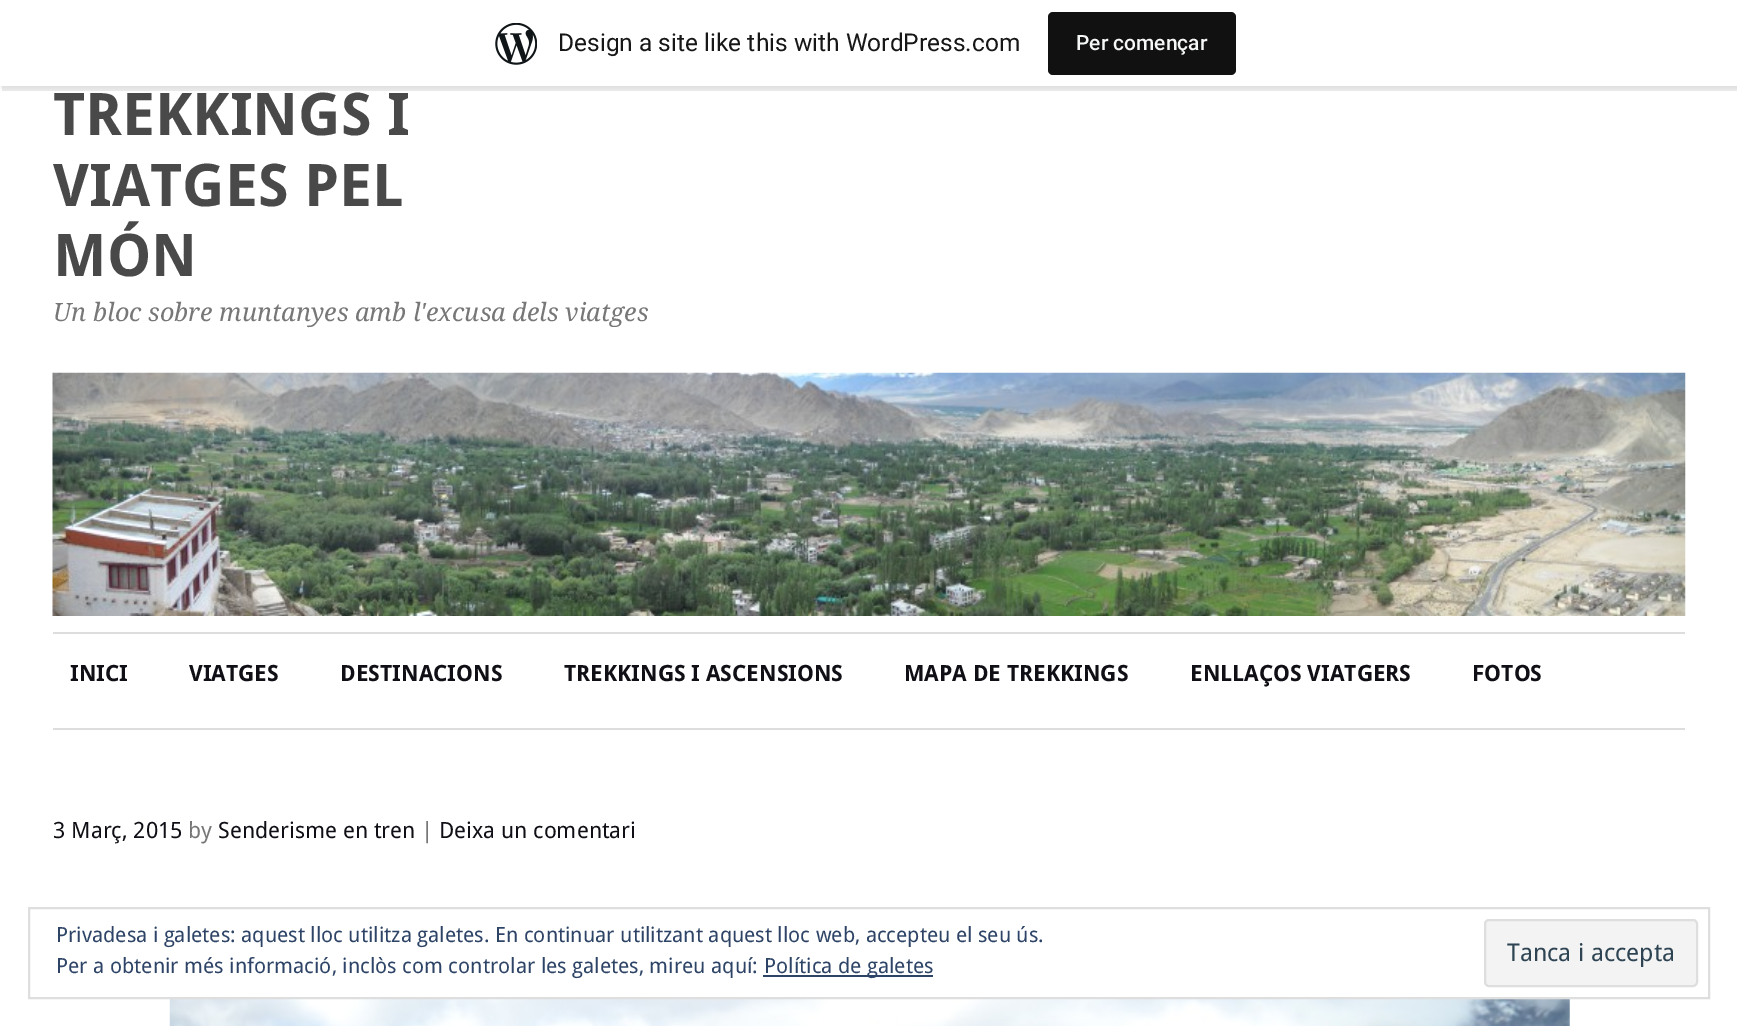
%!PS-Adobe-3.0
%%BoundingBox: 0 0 1737 1026
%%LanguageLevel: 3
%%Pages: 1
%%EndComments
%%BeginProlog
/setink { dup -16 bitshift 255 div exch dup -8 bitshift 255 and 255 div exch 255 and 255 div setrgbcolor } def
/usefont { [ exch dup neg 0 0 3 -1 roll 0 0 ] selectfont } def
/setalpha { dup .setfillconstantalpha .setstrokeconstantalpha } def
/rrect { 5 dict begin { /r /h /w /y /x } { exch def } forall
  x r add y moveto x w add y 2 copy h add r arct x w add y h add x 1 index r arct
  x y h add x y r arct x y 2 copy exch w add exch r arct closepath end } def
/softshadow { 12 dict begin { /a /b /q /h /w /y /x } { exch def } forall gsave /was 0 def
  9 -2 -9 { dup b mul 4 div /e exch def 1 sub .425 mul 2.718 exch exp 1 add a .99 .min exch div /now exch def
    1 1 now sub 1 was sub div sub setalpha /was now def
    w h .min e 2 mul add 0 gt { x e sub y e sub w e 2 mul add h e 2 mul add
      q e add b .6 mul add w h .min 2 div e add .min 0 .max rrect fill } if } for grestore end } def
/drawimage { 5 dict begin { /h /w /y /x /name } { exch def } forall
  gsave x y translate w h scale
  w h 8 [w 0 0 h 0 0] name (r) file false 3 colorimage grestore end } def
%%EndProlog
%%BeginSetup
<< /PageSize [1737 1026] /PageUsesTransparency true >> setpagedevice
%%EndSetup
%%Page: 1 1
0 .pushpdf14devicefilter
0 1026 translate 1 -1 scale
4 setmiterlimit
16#FFFFFF setink
0 0 1737 1026 rectfill
16#000000 setink
0 2 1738 86 0 2 0.05 softshadow
0.08 setalpha
2 86 moveto 2 91 lineto 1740 91 lineto 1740 5 lineto 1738 5 lineto 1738 86 lineto closepath fill
1 setalpha
16#FFFFFF setink
0 0 1737 86 rectfill
(img1.raw) 495 23 42 42 drawimage
/Roboto-Regular 24.5 usefont
16#171717 setink
558 51 moveto (Design a site like this with WordPress.com) show
16#111111 setink
1048 12 188 63 5 rrect fill
/Roboto-Medium 21 usefont
16#F6F7F7 setink
1076 50 moveto (Per començar) show
/DroidSans-Bold 58.75 usefont
16#494949 setink
[
    [(TREKKINGS I) 53 135]
    [(VIATGES PEL) 53 206]
    [(MÓN) 53 276]
] { aload pop moveto show } forall
/DroidSerif-Italic 25.2 usefont
16#777777 setink
53 321 moveto (Un bloc sobre muntanyes amb l'excusa dels viatges) show
(img2.raw) 52 372 1634 244 drawimage
16#DDDDDD setink
53 632 1632 2 rectfill
/DroidSans-Bold 22.4 usefont
16#0F0F15 setink
[
    [(INICI) 70 681]
    [(VIATGES) 189 681]
    [(DESTINACIONS) 340 681]
    [(TREKKINGS I ASCENSIONS) 564 681]
    [(MAPA DE TREKKINGS) 904 681]
    [(ENLLAÇOS VIATGERS) 1190 681]
    [(FOTOS) 1472 681]
] { aload pop moveto show } forall
16#DDDDDD setink
53 728 1632 2 rectfill
/DroidSans-Regular 22.4 usefont
16#0F0F15 setink
53 838 moveto (3 Març, 2015) show
16#777777 setink
188 838 moveto (by) show
16#0F0F15 setink
218 838 moveto (Senderisme en tren) show
16#777777 setink
421 838 moveto (|) show
16#0F0F15 setink
439 838 moveto (Deixa un comentari) show
(img3.raw) 169 999 1401 27 drawimage
16#DEDEDE setink
2 setlinewidth
29 908 1680 90 rectstroke
/DroidSans-Regular 21 usefont
16#2E4467 setink
56 942 moveto (Privadesa i galetes: aquest lloc utilitza galetes. En continuar utilitzant aquest lloc web, accepteu el seu ús.) show
56 973 moveto (Per a obtenir més informació, inclòs com controlar les galetes, mireu aquí:) show
763 975 170 2 rectfill
764 973 moveto (Política de galetes) show
16#F3F3F3 setink
1485 920 212 66 4 rrect gsave fill grestore
16#DEDEDE setink
stroke
/DroidSans-Regular 24.5 usefont
16#2E4453 setink
1507 961 moveto (Tanca i accepta) show
.poppdf14devicefilter showpage
%%EOF
